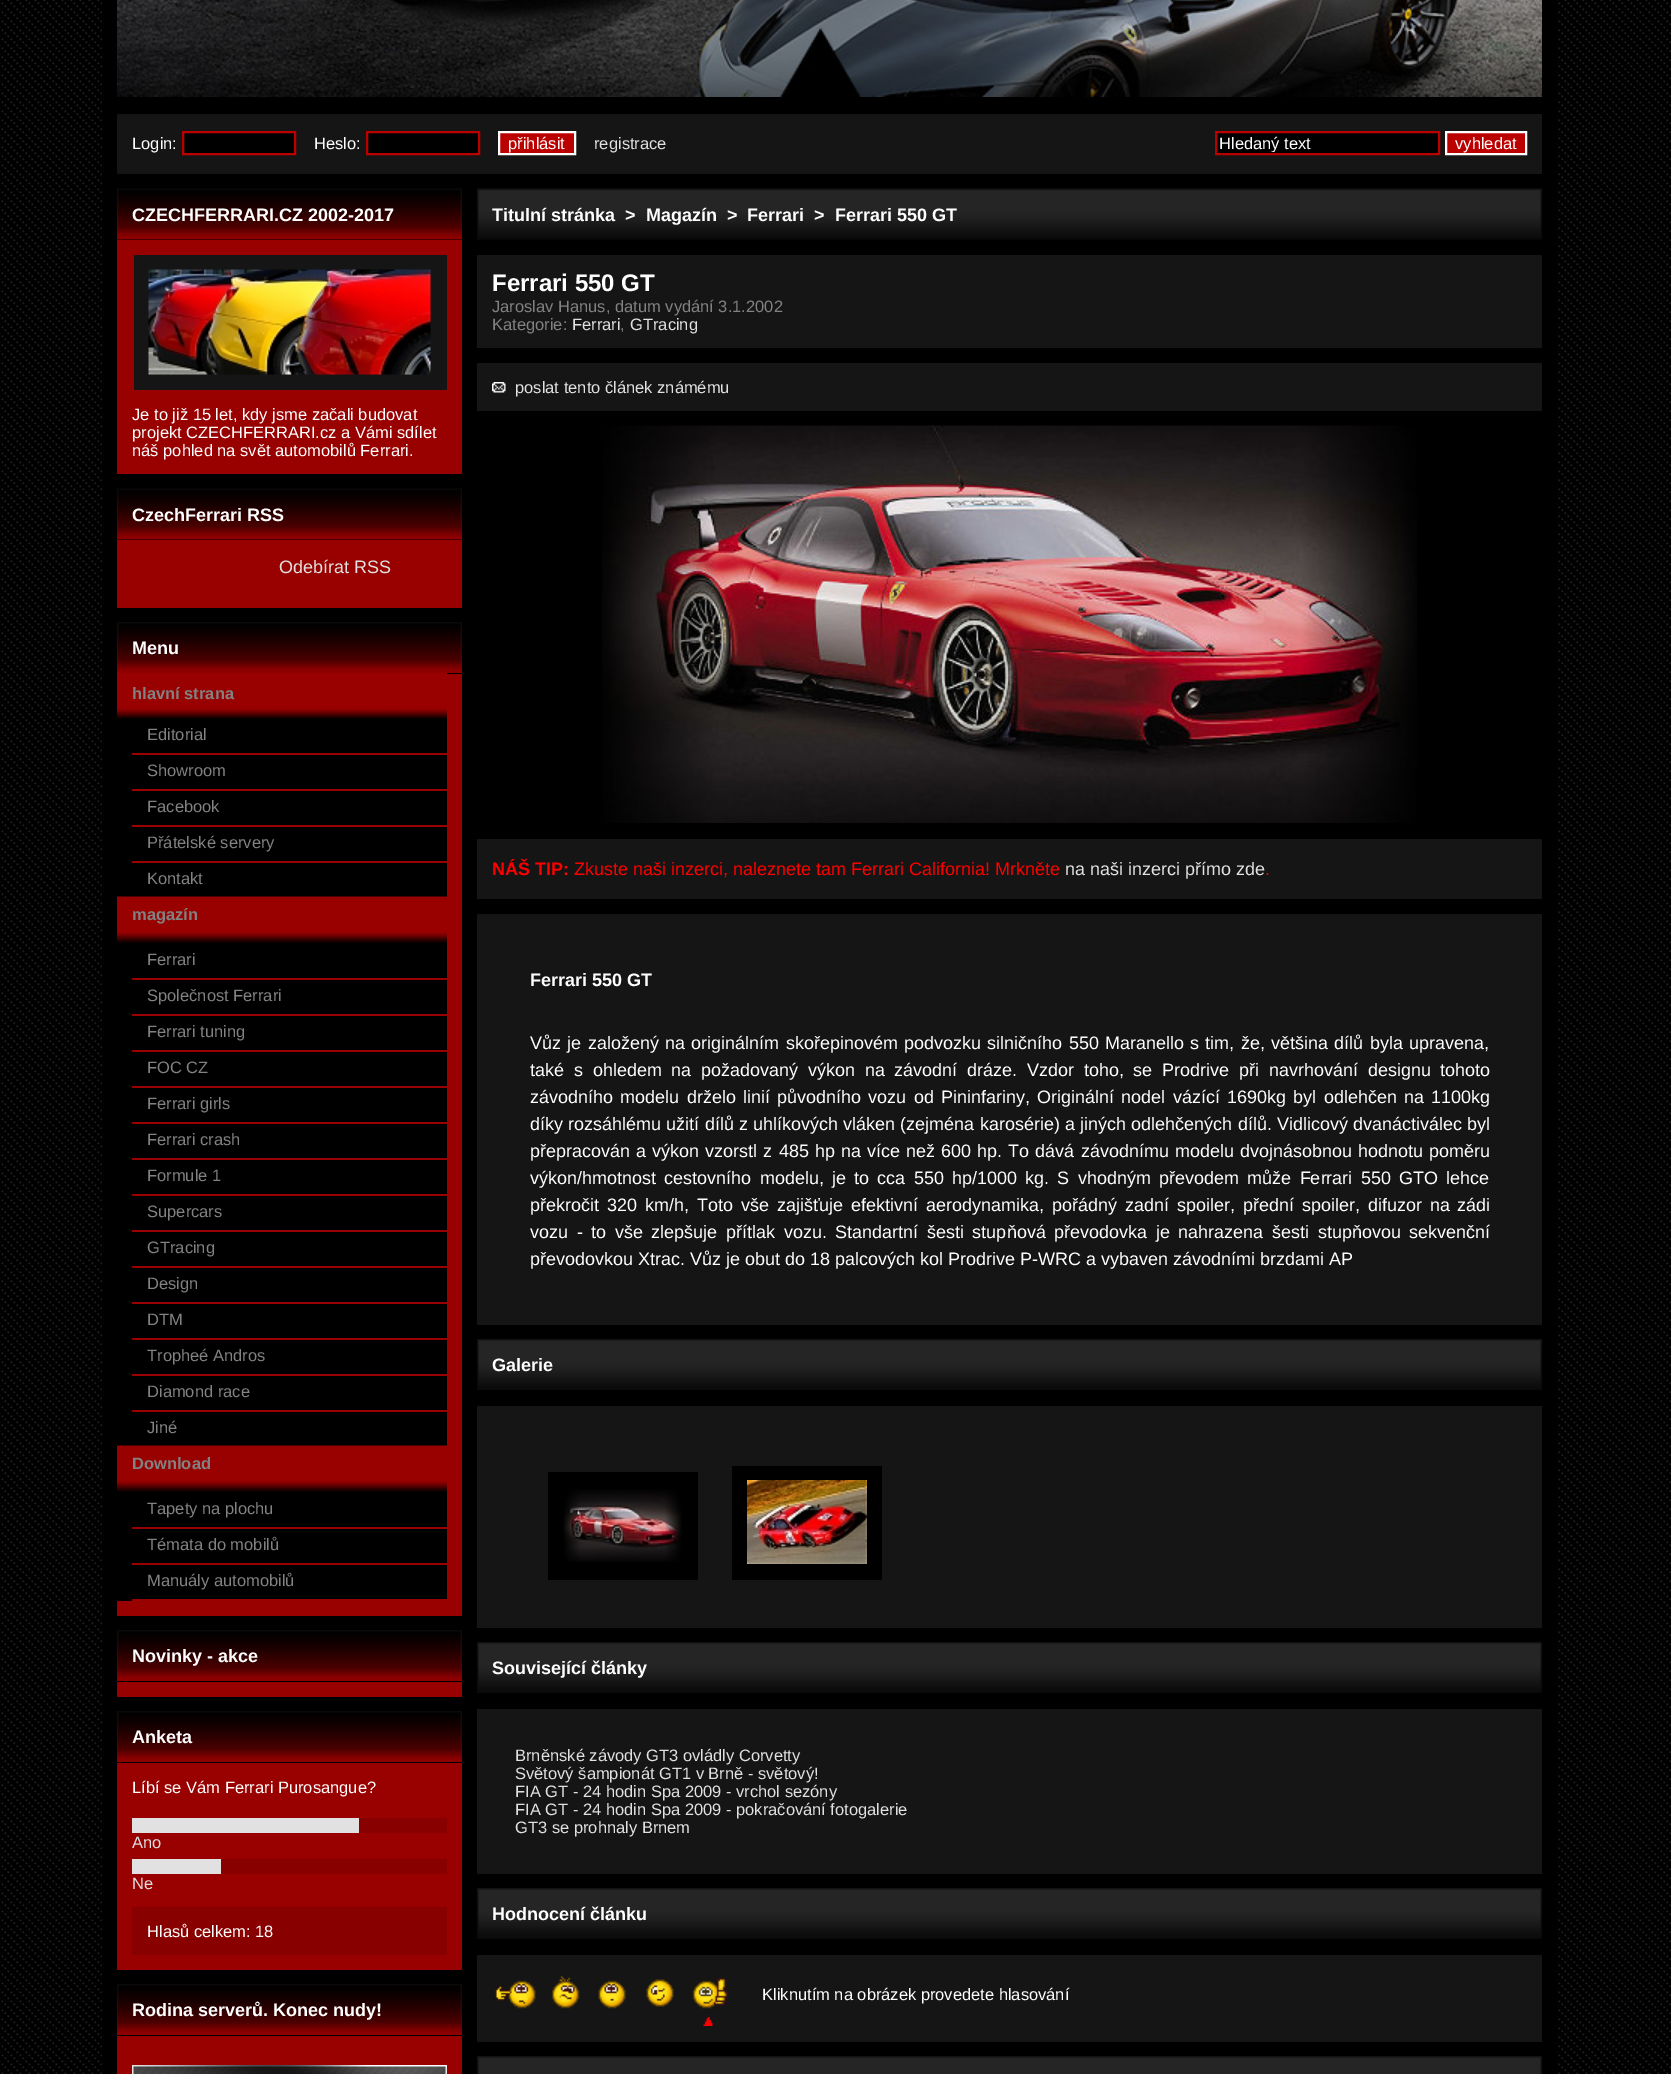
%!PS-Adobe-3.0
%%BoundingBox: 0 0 1671 2074
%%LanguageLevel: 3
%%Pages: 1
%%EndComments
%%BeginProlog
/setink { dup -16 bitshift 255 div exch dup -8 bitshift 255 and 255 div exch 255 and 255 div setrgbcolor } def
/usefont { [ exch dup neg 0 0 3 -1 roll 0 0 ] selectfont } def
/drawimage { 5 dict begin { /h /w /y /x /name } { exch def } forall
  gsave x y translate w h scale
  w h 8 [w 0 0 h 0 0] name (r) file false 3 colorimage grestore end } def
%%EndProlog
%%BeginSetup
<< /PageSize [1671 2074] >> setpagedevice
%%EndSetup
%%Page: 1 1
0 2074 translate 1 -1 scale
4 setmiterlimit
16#FFFFFF setink
0 0 1671 2074 rectfill
(img1.raw) 0 0 1671 2074 drawimage
16#000000 setink
102 0 1455 2074 rectfill
(img2.raw) 117 0 1425 97 drawimage
16#151515 setink
117 114 1425 60 rectfill
/LiberationSans-Regular 16.5 usefont
16#FFFFFF setink
132 149 moveto (Login:) show
16#000000 setink
183 132 moveto 295 132 lineto 295 154 lineto 183 154 lineto closepath gsave fill grestore
16#BB0000 setink
2 setlinewidth
stroke
16#FFFFFF setink
314 149 moveto (Heslo:) show
16#000000 setink
367 132 moveto 479 132 lineto 479 154 lineto 367 154 lineto closepath gsave fill grestore
16#BB0000 setink
stroke
499 132 moveto 575 132 lineto 575 154 lineto 499 154 lineto closepath gsave fill grestore
16#FFFFFF setink
stroke
508 149 moveto (přihlásit) show
16#E1E1E1 setink
594 149 moveto (registrace) show
16#000000 setink
1216 132 moveto 1439 132 lineto 1439 154 lineto 1216 154 lineto closepath gsave fill grestore
16#BB0000 setink
stroke
gsave
1220 134 216 18 rectclip
16#FFFFFF setink
1219 149 moveto (Hledaný text) show
grestore
1446 132 moveto 1526 132 lineto 1526 154 lineto 1446 154 lineto closepath gsave fill grestore
16#FFFFFF setink
stroke
1455 149 moveto (vyhledat) show
(img3.raw) 117 188 345 52 drawimage
/LiberationSans-Bold 18 usefont
132 221 moveto (CZECHFERRARI.CZ 2002-2017) show
16#990000 setink
117 240 345 234 rectfill
16#151515 setink
134 255 313 135 rectfill
(img4.raw) 148 269 283 106 drawimage
/LiberationSans-Regular 16.5 usefont
16#FFFFFF setink
[
    [(Je to již 15 let, kdy jsme začali budovat) 132 420]
    [(projekt CZECHFERRARI.cz a Vámi sdílet) 132 438]
    [(náš pohled na svět automobilů Ferrari.) 132 456]
] { aload pop moveto show } forall
(img3.raw) 117 488 345 52 drawimage
/LiberationSans-Bold 18 usefont
132 521 moveto (CzechFerrari RSS) show
16#990000 setink
117 540 345 68 rectfill
/LiberationSans-Regular 18 usefont
16#E1E1E1 setink
279 573 moveto (Odebírat RSS) show
(img5.raw) 117 622 345 51 drawimage
/LiberationSans-Bold 18 usefont
16#FFFFFF setink
132 654 moveto (Menu) show
16#990000 setink
117 674 345 942 rectfill
16#000000 setink
117 718 330 883 rectfill
(img6.raw) 117 673 330 45 drawimage
/LiberationSans-Bold 16.5 usefont
16#828282 setink
132 699 moveto (hlavní strana) show
16#990000 setink
132 753 315 2 rectfill
/LiberationSans-Regular 16.5 usefont
16#828282 setink
147 740 moveto (Editorial) show
16#990000 setink
132 789 315 2 rectfill
16#828282 setink
147 776 moveto (Showroom) show
16#990000 setink
132 825 315 2 rectfill
16#828282 setink
147 812 moveto (Facebook) show
16#990000 setink
132 861 315 2 rectfill
16#828282 setink
147 848 moveto (Přátelské servery) show
147 884 moveto (Kontakt) show
(img7.raw) 117 896 330 47 drawimage
/LiberationSans-Bold 16.5 usefont
132 920 moveto (magazín) show
16#990000 setink
132 978 315 2 rectfill
/LiberationSans-Regular 16.5 usefont
16#828282 setink
147 965 moveto (Ferrari) show
16#990000 setink
132 1014 315 2 rectfill
16#828282 setink
147 1001 moveto (Společnost Ferrari) show
16#990000 setink
132 1050 315 2 rectfill
16#828282 setink
147 1037 moveto (Ferrari tuning) show
16#990000 setink
132 1086 315 2 rectfill
16#828282 setink
147 1073 moveto (FOC CZ) show
16#990000 setink
132 1122 315 2 rectfill
16#828282 setink
147 1109 moveto (Ferrari girls) show
16#990000 setink
132 1158 315 2 rectfill
16#828282 setink
147 1145 moveto (Ferrari crash) show
16#990000 setink
132 1194 315 2 rectfill
16#828282 setink
147 1181 moveto (Formule 1) show
16#990000 setink
132 1230 315 2 rectfill
16#828282 setink
147 1217 moveto (Supercars) show
16#990000 setink
132 1266 315 2 rectfill
16#828282 setink
147 1253 moveto (GTracing) show
16#990000 setink
132 1302 315 2 rectfill
16#828282 setink
147 1289 moveto (Design) show
16#990000 setink
132 1338 315 2 rectfill
16#828282 setink
147 1325 moveto (DTM) show
16#990000 setink
132 1374 315 2 rectfill
16#828282 setink
147 1361 moveto (Tropheé Andros) show
16#990000 setink
132 1410 315 2 rectfill
16#828282 setink
147 1397 moveto (Diamond race) show
147 1433 moveto (Jiné) show
(img8.raw) 117 1445 330 47 drawimage
/LiberationSans-Bold 16.5 usefont
132 1469 moveto (Download) show
16#990000 setink
132 1527 315 2 rectfill
/LiberationSans-Regular 16.5 usefont
16#828282 setink
147 1514 moveto (Tapety na plochu) show
16#990000 setink
132 1563 315 2 rectfill
16#828282 setink
147 1550 moveto (Témata do mobilů) show
16#990000 setink
132 1599 315 2 rectfill
16#828282 setink
147 1586 moveto (Manuály automobilů) show
(img5.raw) 117 1630 345 51 drawimage
/LiberationSans-Bold 18 usefont
16#FFFFFF setink
132 1662 moveto (Novinky - akce) show
16#990000 setink
117 1682 345 15 rectfill
(img5.raw) 117 1711 345 51 drawimage
16#FFFFFF setink
132 1743 moveto (Anketa) show
16#990000 setink
117 1763 345 207 rectfill
/LiberationSans-Regular 16.5 usefont
16#FFFFFF setink
132 1793 moveto (Líbí se Vám Ferrari Purosangue?) show
16#880000 setink
359 1818 88 15 rectfill
16#E1E1E1 setink
132 1818 227 15 rectfill
132 1848 moveto (Ano) show
16#880000 setink
221 1859 226 15 rectfill
16#E1E1E1 setink
132 1859 89 15 rectfill
132 1889 moveto (Ne) show
16#880000 setink
132 1907 315 48 rectfill
16#FFFFFF setink
147 1937 moveto (Hlasů celkem: 18) show
(img5.raw) 117 1984 345 51 drawimage
/LiberationSans-Bold 18 usefont
132 2016 moveto (Rodina serverů. Konec nudy!) show
16#990000 setink
117 2036 345 38 rectfill
(img9.raw) 132 2065 315 9 drawimage
(img10.raw) 477 188 1065 52 drawimage
16#FFFFFF setink
[
    [(Titulní stránka) 492 221]
    [(>) 625 221]
    [(Magazín) 646 221]
    [(>) 727 221]
    [(Ferrari) 747 221]
    [(>) 814 221]
    [(Ferrari 550 GT) 835 221]
] { aload pop moveto show } forall
16#151515 setink
477 255 1065 93 rectfill
/LiberationSans-Bold 24 usefont
16#FFFFFF setink
492 291 moveto (Ferrari 550 GT) show
/LiberationSans-Regular 16.5 usefont
16#828282 setink
492 312 moveto (Jaroslav Hanus, datum vydání 3.1.2002) show
492 330 moveto (Kategorie:) show
16#E1E1E1 setink
572 330 moveto (Ferrari) show
16#828282 setink
620 330 moveto (,) show
16#E1E1E1 setink
630 330 moveto (GTracing) show
16#151515 setink
477 363 1065 48 rectfill
(img11.raw) 492 382 14 11 drawimage
16#E1E1E1 setink
515 393 moveto (poslat tento článek známému) show
(img12.raw) 602 425 815 398 drawimage
16#151515 setink
477 839 1065 60 rectfill
/LiberationSans-Bold 18 usefont
16#FF0000 setink
492 875 moveto (NÁŠ TIP:) show
/LiberationSans-Regular 18 usefont
574 875 moveto (Zkuste naši inzerci, naleznete tam Ferrari California! Mrkněte) show
16#E1E1E1 setink
1065 875 moveto (na naši inzerci přímo zde) show
16#FF0000 setink
1265 875 moveto (.) show
16#151515 setink
477 914 1065 411 rectfill
/LiberationSans-Bold 18 usefont
16#FFFFFF setink
530 986 moveto (Ferrari 550 GT) show
/LiberationSans-Regular 18 usefont
530 1049 moveto 1.3 0 32 (Vůz je založený na originálním skořepinovém podvozku silničního 550 Maranello s tim, že, většina dílů byla upravena,) widthshow
530 1076 moveto 4.75 0 32 (také s ohledem na požadovaný výkon na závodní dráze. Vzdor toho, se Prodrive při navrhování designu tohoto) widthshow
530 1103 moveto 2.25 0 32 (závodního modelu drželo linií původního vozu od Pininfariny, Originální nodel vázící 1690kg byl odlehčen na 1100kg) widthshow
530 1130 moveto 0.2 0 32 (díky rozsáhlému užití dílů z uhlíkových vláken \(zejména karosérie\) a jiných odlehčených dílů. Vidlicový dvanáctiválec byl) widthshow
530 1157 moveto 1.1 0 32 (přepracován a výkon vzorstl z 485 hp na více než 600 hp. To dává závodnímu modelu dvojnásobnou hodnotu poměru) widthshow
530 1184 moveto 3.25 0 32 (výkon/hmotnost cestovního modelu, je to cca 550 hp/1000 kg. S vhodným převodem může Ferrari 550 GTO lehce) widthshow
530 1211 moveto 2.9 0 32 (překročit 320 km/h, Toto vše zajišťuje efektivní aerodynamika, pořádný zadní spoiler, přední spoiler, difuzor na zádi) widthshow
530 1238 moveto 3.6 0 32 (vozu - to vše zlepšuje přítlak vozu. Standartní šesti stupňová převodovka je nahrazena šesti stupňovou sekvenční) widthshow
530 1265 moveto (převodovkou Xtrac. Vůz je obut do 18 palcových kol Prodrive P-WRC a vybaven závodními brzdami AP) show
(img13.raw) 477 1339 1065 51 drawimage
/LiberationSans-Bold 18 usefont
492 1371 moveto (Galerie) show
[
    [477 1406 1065 222 16#151515]
    [548 1472 150 108 16#000000]
    [732 1466 150 114 16#000000]
] { aload pop setink rectfill } forall
(img14.raw) 563 1489 119 73 drawimage
(img15.raw) 747 1480 120 84 drawimage
(img13.raw) 477 1642 1065 51 drawimage
16#FFFFFF setink
492 1674 moveto (Související články) show
16#151515 setink
477 1709 1065 165 rectfill
/LiberationSans-Regular 16.5 usefont
16#E1E1E1 setink
[
    [(Brněnské závody GT3 ovládly Corvetty) 515 1761]
    [(Světový šampionát GT1 v Brně - světový!) 515 1779]
    [(FIA GT - 24 hodin Spa 2009 - vrchol sezóny) 515 1797]
    [(FIA GT - 24 hodin Spa 2009 - pokračování fotogalerie) 515 1815]
    [(GT3 se prohnaly Brnem) 515 1833]
] { aload pop moveto show } forall
(img13.raw) 477 1888 1065 51 drawimage
/LiberationSans-Bold 18 usefont
16#FFFFFF setink
492 1920 moveto (Hodnocení článku) show
16#151515 setink
477 1955 1065 87 rectfill
(img16.raw) 494 1980 42 29 drawimage
(img17.raw) 551 1976 29 33 drawimage
(img18.raw) 598 1980 28 29 drawimage
(img19.raw) 646 1979 28 28 drawimage
(img20.raw) 692 1977 36 32 drawimage
/LiberationSans-Regular 16.5 usefont
16#FFFFFF setink
762 2000 moveto (Kliknutím na obrázek provedete hlasování) show
(img21.raw) 703 2017 10 9 drawimage
(img22.raw) 477 2056 1065 18 drawimage
showpage
%%EOF
